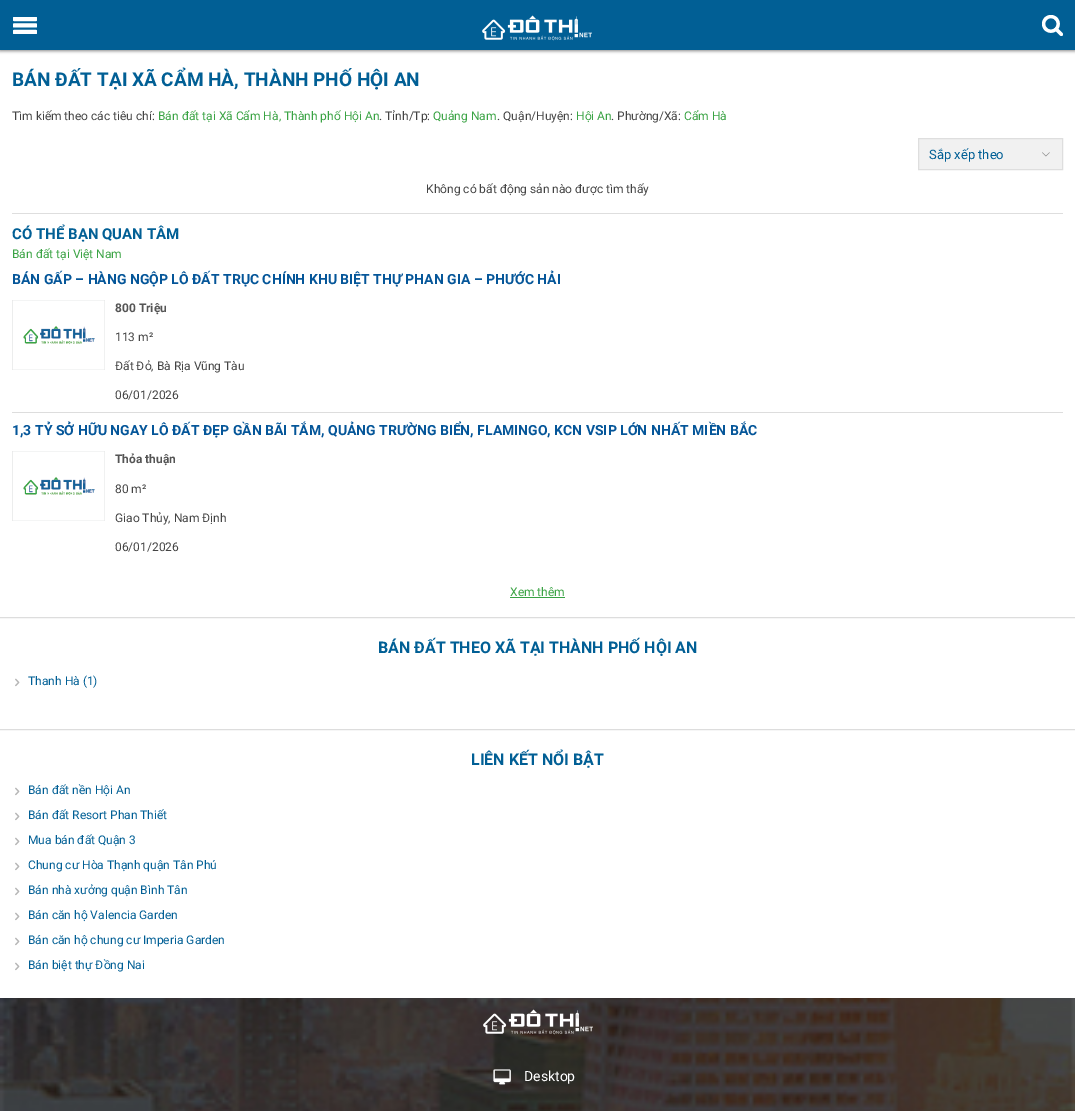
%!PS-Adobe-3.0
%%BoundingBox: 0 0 1075 1111
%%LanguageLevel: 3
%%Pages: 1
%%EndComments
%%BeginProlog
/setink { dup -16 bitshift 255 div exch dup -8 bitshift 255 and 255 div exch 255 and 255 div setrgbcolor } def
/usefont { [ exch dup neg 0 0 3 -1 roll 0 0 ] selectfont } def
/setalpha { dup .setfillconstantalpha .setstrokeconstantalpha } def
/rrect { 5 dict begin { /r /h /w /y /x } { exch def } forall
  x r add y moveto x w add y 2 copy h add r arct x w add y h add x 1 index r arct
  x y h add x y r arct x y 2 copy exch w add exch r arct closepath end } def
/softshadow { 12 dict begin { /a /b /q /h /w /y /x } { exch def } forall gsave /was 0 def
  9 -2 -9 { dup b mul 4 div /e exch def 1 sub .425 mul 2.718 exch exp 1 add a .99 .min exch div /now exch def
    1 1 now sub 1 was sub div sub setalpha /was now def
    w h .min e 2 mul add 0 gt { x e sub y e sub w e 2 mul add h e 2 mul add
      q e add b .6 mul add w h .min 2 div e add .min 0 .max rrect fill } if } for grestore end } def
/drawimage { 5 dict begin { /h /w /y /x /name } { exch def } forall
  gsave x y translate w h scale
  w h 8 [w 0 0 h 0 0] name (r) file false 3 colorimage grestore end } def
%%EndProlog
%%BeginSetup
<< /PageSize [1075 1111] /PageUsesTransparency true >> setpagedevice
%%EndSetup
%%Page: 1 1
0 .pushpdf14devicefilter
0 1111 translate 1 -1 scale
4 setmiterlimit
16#FFFFFF setink
0 0 1075 1111 rectfill
16#666666 setink
0 0 1075 51 0 1.5 0.75 softshadow
16#015F95 setink
0 0 1075 50 rectfill
(img1.raw) 13 17 24 17 drawimage
(img2.raw) 482 15 110 26 drawimage
(img3.raw) 1042 15 21 21 drawimage
/Roboto-Bold 19 usefont
12 86 moveto (BÁN ĐẤT TẠI XÃ CẨM HÀ, THÀNH PHỐ HỘI AN) show
/Roboto-Regular 12 usefont
16#444444 setink
12 120 moveto (Tìm kiếm theo các tiêu chí:) show
16#3AA344 setink
158 120 moveto (Bán đất tại Xã Cẩm Hà, Thành phố Hội An) show
16#444444 setink
379 120 moveto (. Tỉnh/Tp:) show
16#3AA344 setink
433 120 moveto (Quảng Nam) show
16#444444 setink
497 120 moveto (. Quận/Huyện:) show
16#3AA344 setink
576 120 moveto (Hội An) show
16#444444 setink
611 120 moveto (. Phường/Xã:) show
16#3AA344 setink
684 120 moveto (Cẩm Hà) show
16#F1F1F1 setink
918.5 138.5 moveto 1062.5 138.5 lineto 1062.5 169.5 lineto 918.5 169.5 lineto closepath gsave fill grestore
16#DEDEDE setink
stroke
/Roboto-Regular 13 usefont
16#015F95 setink
929 159 moveto (Sắp xếp theo) show
(img4.raw) 1042 152 8 5 drawimage
/Roboto-Regular 12 usefont
16#444444 setink
426 193 moveto (Không có bất động sản nào được tìm thấy) show
16#DEDEDE setink
12 213 1051 1 rectfill
/Roboto-Bold 15 usefont
16#015F95 setink
12 239 moveto (CÓ THỂ BẠN QUAN TÂM) show
/Roboto-Regular 12 usefont
16#3AA344 setink
12 258 moveto (Bán đất tại Việt Nam) show
16#DDDDDD setink
12 412 1051 1 rectfill
/Roboto-Bold 14 usefont
16#055699 setink
12 284 moveto (BÁN GẤP – HÀNG NGỘP LÔ ĐẤT TRỤC CHÍNH KHU BIỆT THỰ PHAN GIA – PHƯỚC HẢI) show
(img5.raw) 12 300 93 70 drawimage
/Roboto-Bold 12 usefont
16#555555 setink
115 312 moveto (800 Triệu) show
/Roboto-Regular 12 usefont
16#444444 setink
[
    [(113 m²) 115 341]
    [(Đất Đỏ, Bà Rịa Vũng Tàu) 115 370]
    [(06/01/2026) 115 399]
] { aload pop moveto show } forall
/Roboto-Bold 14 usefont
16#055699 setink
12 435 moveto (1,3 TỶ SỞ HỮU NGAY LÔ ĐẤT ĐẸP GẦN BÃI TẮM, QUẢNG TRƯỜNG BIỂN, FLAMINGO, KCN VSIP LỚN NHẤT MIỀN BẮC) show
(img5.raw) 12 451 93 70 drawimage
/Roboto-Bold 12 usefont
16#555555 setink
115 463 moveto (Thỏa thuận) show
/Roboto-Regular 12 usefont
16#444444 setink
[
    [(80 m²) 115 493]
    [(Giao Thủy, Nam Định) 115 522]
    [(06/01/2026) 115 551]
] { aload pop moveto show } forall
16#3AA344 setink
510 596 moveto (Xem thêm) show
[
    [510 597 55 1 16#37A244]
    [0 617 1075 1 16#DDDDDD]
    [0 618 1075 1 16#F6F6F6]
] { aload pop setink rectfill } forall
/Roboto-Bold 16 usefont
16#015F95 setink
378 653 moveto (BÁN ĐẤT THEO XÃ TẠI THÀNH PHỐ HỘI AN) show
(img6.raw) 15 678 5 9 drawimage
/Roboto-Regular 12 usefont
28 685 moveto (Thanh Hà \(1\)) show
16#DDDDDD setink
0 729 1075 1 rectfill
16#F6F6F6 setink
0 730 1075 1 rectfill
/Roboto-Bold 16 usefont
16#015F95 setink
471 765 moveto (LIÊN KẾT NỔI BẬT) show
(img6.raw) 15 787 5 9 drawimage
/Roboto-Regular 12 usefont
28 794 moveto (Bán đất nền Hội An) show
(img6.raw) 15 812 5 9 drawimage
28 819 moveto (Bán đất Resort Phan Thiết) show
(img6.raw) 15 837 5 9 drawimage
28 844 moveto (Mua bán đất Quận 3) show
(img6.raw) 15 862 5 9 drawimage
28 869 moveto (Chung cư Hòa Thạnh quận Tân Phú) show
(img6.raw) 15 887 5 9 drawimage
28 894 moveto (Bán nhà xưởng quận Bình Tân) show
(img6.raw) 15 912 5 9 drawimage
28 919 moveto (Bán căn hộ Valencia Garden) show
(img6.raw) 15 937 5 9 drawimage
28 944 moveto (Bán căn hộ chung cư Imperia Garden) show
(img6.raw) 15 962 5 9 drawimage
28 969 moveto (Bán biệt thự Đồng Nai) show
(img7.raw) 0 998 1075 113 drawimage
(img8.raw) 483 1009 110 26 drawimage
(img9.raw) 493 1069 18 16 drawimage
/Roboto-Regular 14 usefont
16#FFFFFF setink
524 1081 moveto (Desktop) show
.poppdf14devicefilter showpage
%%EOF
